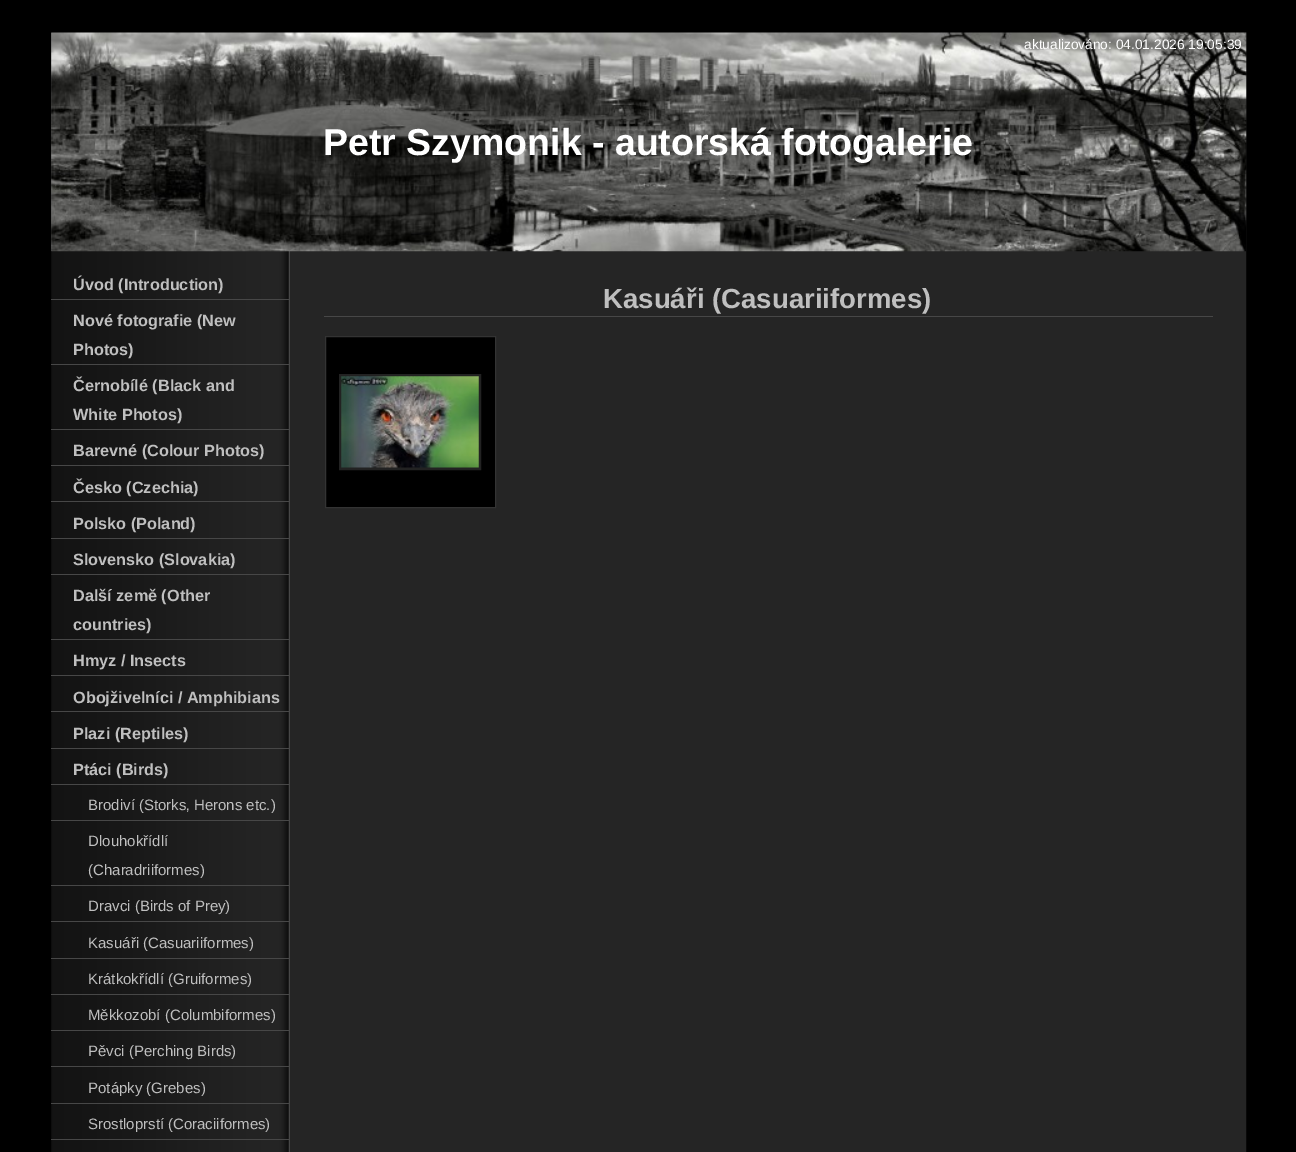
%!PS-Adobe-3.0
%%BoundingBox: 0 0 1296 1152
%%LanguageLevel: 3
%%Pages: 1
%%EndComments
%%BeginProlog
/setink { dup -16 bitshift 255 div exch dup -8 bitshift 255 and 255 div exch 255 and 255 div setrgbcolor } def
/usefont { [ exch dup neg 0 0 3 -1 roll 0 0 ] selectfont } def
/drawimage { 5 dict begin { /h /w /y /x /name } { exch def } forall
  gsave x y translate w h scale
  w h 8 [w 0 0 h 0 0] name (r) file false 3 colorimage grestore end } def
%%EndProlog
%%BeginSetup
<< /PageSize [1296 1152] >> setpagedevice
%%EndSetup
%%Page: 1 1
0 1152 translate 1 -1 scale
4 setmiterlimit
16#000000 setink
0 0 1296 1152 rectfill
(img1.raw) 51 32 1196 1120 drawimage
[
    [51 32 1195 1 16#000000]
    [290 251 1 901 16#252525]
    [289 251 1 901 16#474747]
] { aload pop setink rectfill } forall
(img2.raw) 51 32 1196 220 drawimage
/LiberationSans-Regular 13.75 usefont
16#FFFFFF setink
1024 49 moveto (aktualizováno: 04.01.2026 19:05:39) show
/LiberationSans-Bold 37.5 usefont
323 155 moveto (Petr Szymonik - autorská fotogalerie) show
16#474747 setink
51 299 238 1 rectfill
/LiberationSans-Bold 16.25 usefont
16#BFBFBF setink
73 290 moveto (Úvod \(Introduction\)) show
16#474747 setink
51 364 238 1 rectfill
16#BFBFBF setink
73 326 moveto (Nové fotografie \(New) show
73 355 moveto (Photos\)) show
16#474747 setink
51 429 238 1 rectfill
16#BFBFBF setink
73 391 moveto (Černobílé \(Black and) show
73 420 moveto (White Photos\)) show
16#474747 setink
51 465 238 1 rectfill
16#BFBFBF setink
73 456 moveto (Barevné \(Colour Photos\)) show
16#474747 setink
51 501 238 1 rectfill
16#BFBFBF setink
73 493 moveto (Česko \(Czechia\)) show
16#474747 setink
51 538 238 1 rectfill
16#BFBFBF setink
73 529 moveto (Polsko \(Poland\)) show
16#474747 setink
51 574 238 1 rectfill
16#BFBFBF setink
73 565 moveto (Slovensko \(Slovakia\)) show
16#474747 setink
51 639 238 1 rectfill
16#BFBFBF setink
73 601 moveto (Další země \(Other) show
73 630 moveto (countries\)) show
16#474747 setink
51 675 238 1 rectfill
16#BFBFBF setink
73 666 moveto (Hmyz / Insects) show
16#474747 setink
51 711 238 1 rectfill
16#BFBFBF setink
73 703 moveto (Obojživelníci / Amphibians) show
16#474747 setink
51 748 238 1 rectfill
16#BFBFBF setink
73 739 moveto (Plazi \(Reptiles\)) show
16#474747 setink
51 784 238 1 rectfill
16#BFBFBF setink
73 775 moveto (Ptáci \(Birds\)) show
16#474747 setink
51 820 238 1 rectfill
/LiberationSans-Regular 15 usefont
16#BFBFBF setink
88 810 moveto (Brodiví \(Storks‚ Herons etc.\)) show
16#474747 setink
51 885 238 1 rectfill
16#BFBFBF setink
88 846 moveto (Dlouhokřídlí) show
88 875 moveto (\(Charadriiformes\)) show
16#474747 setink
51 921 238 1 rectfill
16#BFBFBF setink
88 911 moveto (Dravci \(Birds of Prey\)) show
16#474747 setink
51 958 238 1 rectfill
16#BFBFBF setink
88 948 moveto (Kasuáři \(Casuariiformes\)) show
16#474747 setink
51 994 238 1 rectfill
16#BFBFBF setink
88 984 moveto (Krátkokřídlí \(Gruiformes\)) show
16#474747 setink
51 1030 238 1 rectfill
16#BFBFBF setink
88 1020 moveto (Měkkozobí \(Columbiformes\)) show
16#474747 setink
51 1066 238 1 rectfill
16#BFBFBF setink
88 1056 moveto (Pěvci \(Perching Birds\)) show
16#474747 setink
51 1103 238 1 rectfill
16#BFBFBF setink
88 1093 moveto (Potápky \(Grebes\)) show
16#474747 setink
51 1139 238 1 rectfill
16#BFBFBF setink
88 1129 moveto (Srostloprstí \(Coraciiformes\)) show
16#474747 setink
324 316 889 1 rectfill
/LiberationSans-Bold 27.6 usefont
16#BFBFBF setink
603 308 moveto (Kasuáři \(Casuariiformes\)) show
16#000000 setink
325.5 336.5 moveto 495.5 336.5 lineto 495.5 507.5 lineto 325.5 507.5 lineto closepath gsave fill grestore
16#333333 setink
stroke
16#222222 setink
3 setlinewidth
340.5 375.5 139 93 rectstroke
(img3.raw) 341 376 138 92 drawimage
showpage
%%EOF
